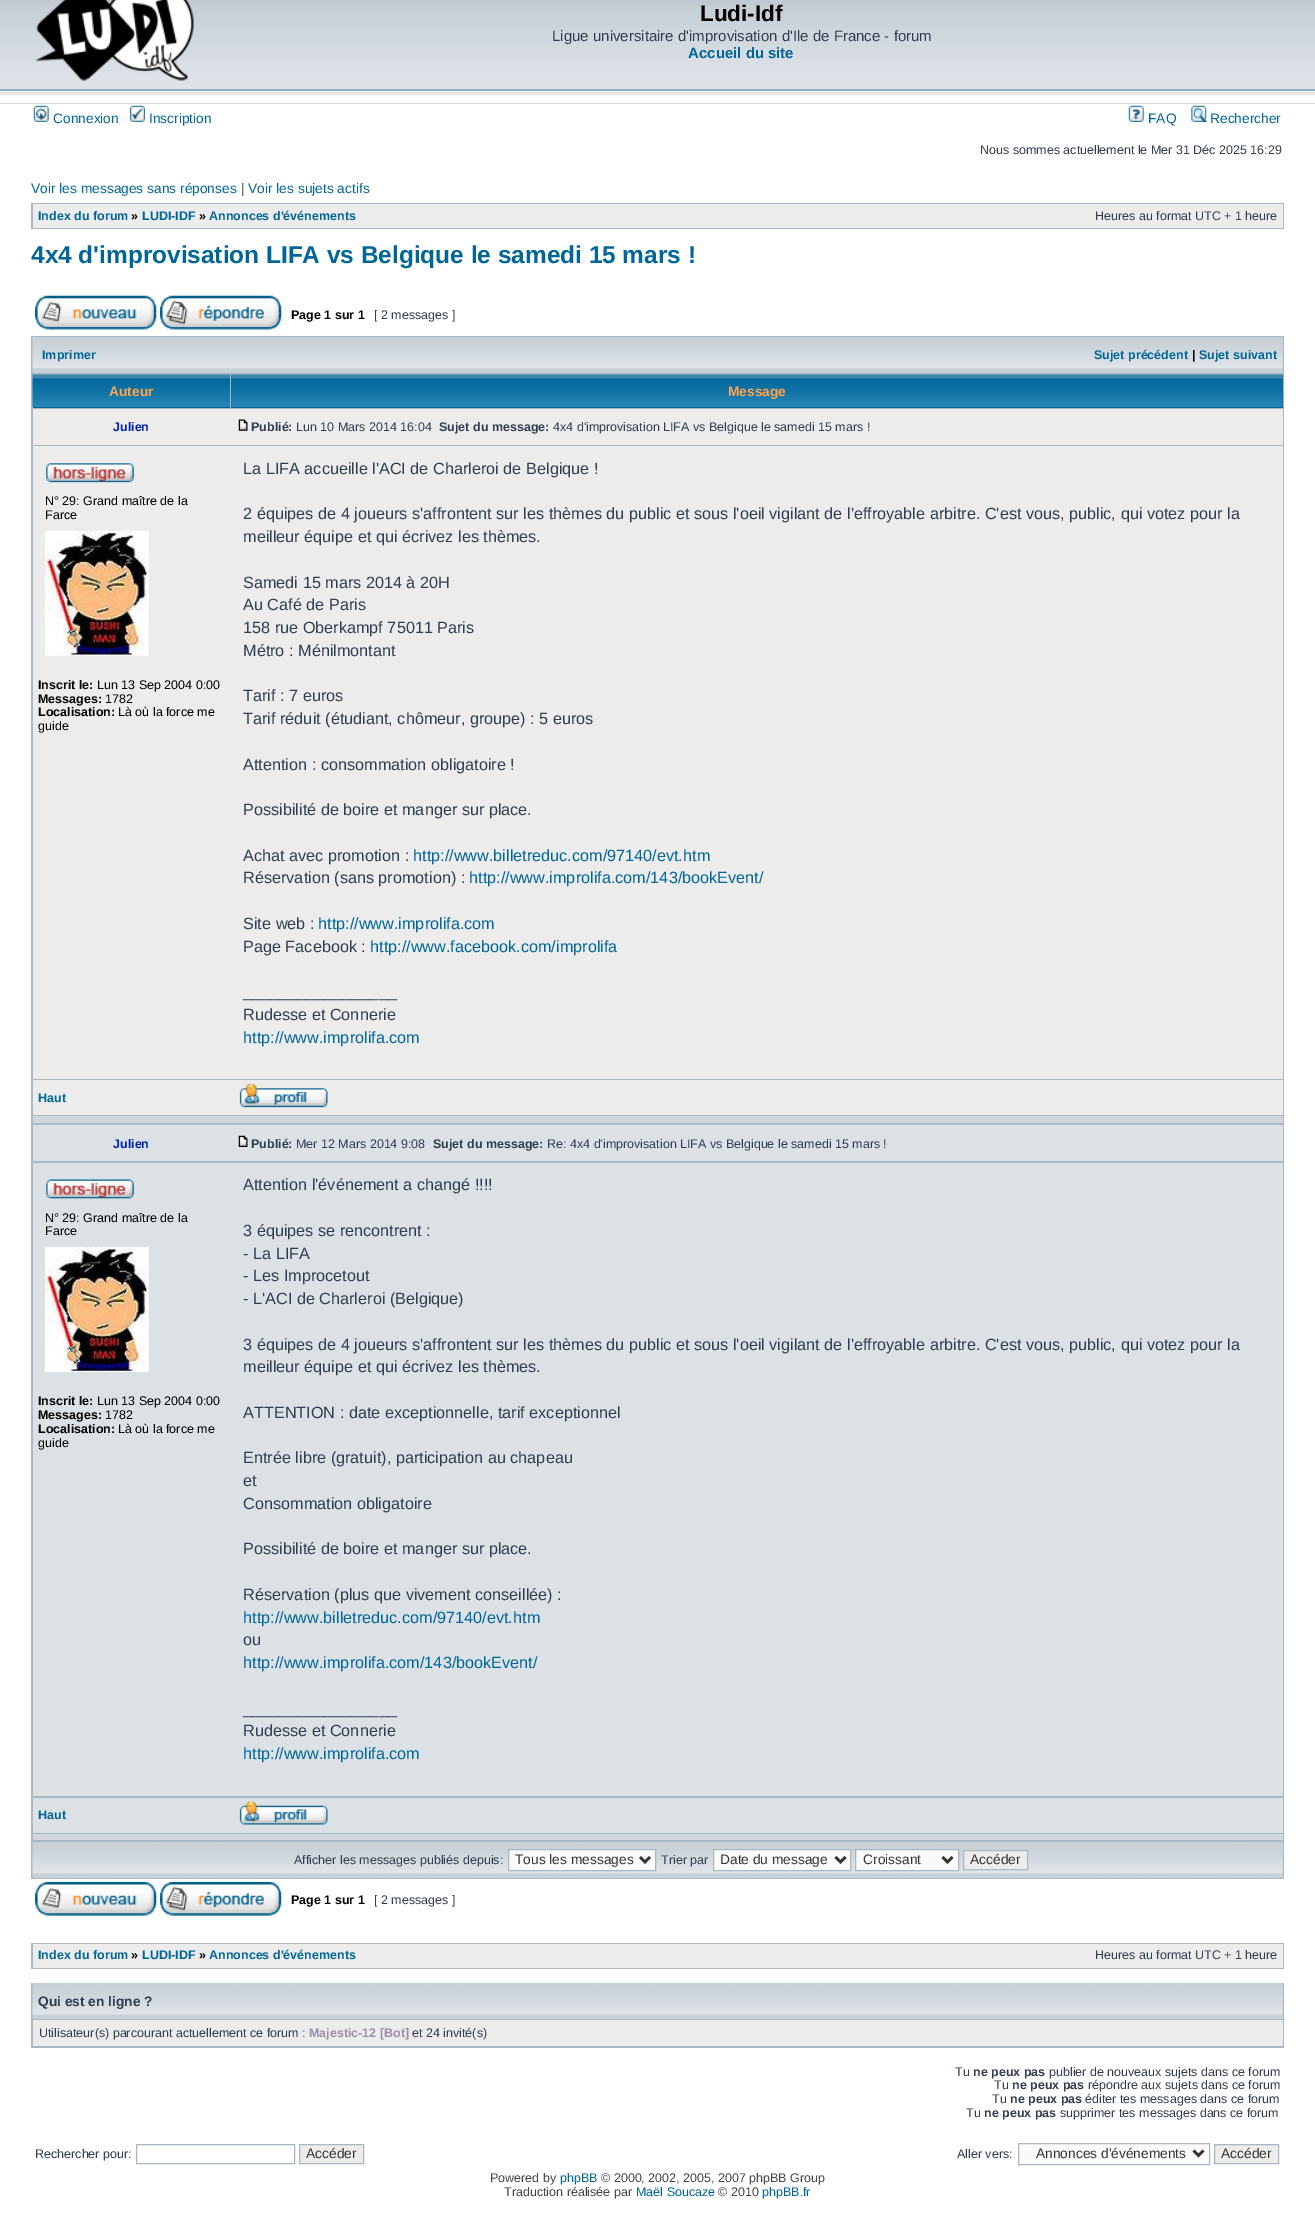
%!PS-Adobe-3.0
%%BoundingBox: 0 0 1315 2219
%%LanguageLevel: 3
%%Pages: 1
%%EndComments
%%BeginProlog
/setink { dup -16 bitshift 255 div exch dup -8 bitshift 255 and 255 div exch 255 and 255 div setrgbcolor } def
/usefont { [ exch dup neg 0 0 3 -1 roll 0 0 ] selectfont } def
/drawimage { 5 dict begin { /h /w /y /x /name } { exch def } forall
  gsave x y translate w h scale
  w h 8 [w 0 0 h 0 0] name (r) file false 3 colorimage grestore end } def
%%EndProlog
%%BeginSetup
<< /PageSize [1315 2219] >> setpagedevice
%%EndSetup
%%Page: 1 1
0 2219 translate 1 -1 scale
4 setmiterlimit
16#FFFFFF setink
0 0 1315 2219 rectfill
16#C1CAD2 setink
0 0 1315 104 rectfill
(img1.raw) 0 6 1315 98 drawimage
(img2.raw) 35 0 159 81 drawimage
/LiberationSans-Bold 22.5 usefont
16#000000 setink
700 21 moveto (Ludi-Idf) show
/LiberationSans-Regular 15 usefont
16#323D4F setink
552 41 moveto (Ligue universitaire d'improvisation d'Ile de France - forum) show
/LiberationSans-Bold 15 usefont
16#006597 setink
688 58 moveto (Accueil du site) show
(img3.raw) 33 105 16 17 drawimage
/LiberationSans-Regular 13.75 usefont
53 123 moveto (Connexion) show
(img4.raw) 130 105 15 17 drawimage
149 123 moveto (Inscription) show
(img5.raw) 1128 105 16 17 drawimage
1148 123 moveto (FAQ) show
(img6.raw) 1191 105 16 17 drawimage
1210 123 moveto (Rechercher) show
/LiberationSans-Regular 12.5 usefont
16#323D4F setink
980 154 moveto (Nous sommes actuellement le Mer 31 Déc 2025 16:29) show
/LiberationSans-Regular 13.75 usefont
16#006597 setink
31 193 moveto (Voir les messages sans réponses) show
16#323D4F setink
241 193 moveto (|) show
16#006597 setink
248 193 moveto (Voir les sujets actifs) show
16#A9B8C2 setink
31 203 1253 26 rectfill
16#ECECEC setink
33 204 1250 24 rectfill
/LiberationSans-Bold 12.5 usefont
16#006597 setink
38 220 moveto (Index du forum) show
16#000000 setink
131 220 moveto (») show
16#006597 setink
142 220 moveto (LUDI-IDF) show
16#000000 setink
199 220 moveto (») show
16#006597 setink
209 220 moveto (Annonces d'événements) show
/LiberationSans-Regular 12.5 usefont
16#323D4F setink
1095 220 moveto (Heures au format UTC + 1 heure) show
/LiberationSans-Bold 24.4 usefont
16#006597 setink
31 263 moveto (4x4 d'improvisation LIFA vs Belgique le samedi 15 mars !) show
(img7.raw) 35 295 122 35 drawimage
(img8.raw) 160 295 122 35 drawimage
/LiberationSans-Bold 12.5 usefont
16#000000 setink
291 319 moveto (Page 1 sur 1) show
/LiberationSans-Regular 12.5 usefont
16#323D4F setink
374 319 moveto ([ 2 messages ]) show
16#A9B8C2 setink
31 336 1253 1543 rectfill
16#C7D0D7 setink
33 338 1250 35 rectfill
(img9.raw) 32 337 1251 35 drawimage
/LiberationSans-Bold 12.5 usefont
16#006597 setink
42 359 moveto (Imprimer) show
1094 359 moveto (Sujet précédent) show
16#000000 setink
1192 359 moveto (|) show
16#006597 setink
1199 359 moveto (Sujet suivant) show
16#006699 setink
33 407 197 1 rectfill
(img10.raw) 32 374 198 33 drawimage
/LiberationSans-Bold 13.75 usefont
16#FFA34F setink
109 396 moveto (Auteur) show
16#006699 setink
231 375 1052 33 rectfill
(img11.raw) 231 374 1052 33 drawimage
16#FFA34F setink
728 396 moveto (Message) show
16#ECECEC setink
33 409 1250 36 rectfill
/LiberationSans-Bold 12.5 usefont
16#0022AA setink
113 431 moveto (Julien) show
(img12.raw) 238 419 10 12 drawimage
16#323D4F setink
251 431 moveto (Publié:) show
/LiberationSans-Regular 12.5 usefont
296 431 moveto (Lun 10 Mars 2014 16:04) show
/LiberationSans-Bold 12.5 usefont
439 431 moveto (Sujet du message:) show
/LiberationSans-Regular 12.5 usefont
553 431 moveto (4x4 d'improvisation LIFA vs Belgique le samedi 15 mars !) show
16#ECECEC setink
33 446 1250 633 rectfill
(img13.raw) 46 463 88 20 drawimage
16#000000 setink
45 505 moveto (N° 29: Grand maître de la) show
45 519 moveto (Farce) show
(img14.raw) 45 530 104 126 drawimage
/LiberationSans-Bold 12.5 usefont
38 689 moveto (Inscrit le:) show
/LiberationSans-Regular 12.5 usefont
97 689 moveto (Lun 13 Sep 2004 0:00) show
/LiberationSans-Bold 12.5 usefont
38 703 moveto (Messages:) show
/LiberationSans-Regular 12.5 usefont
105 703 moveto (1782) show
/LiberationSans-Bold 12.5 usefont
38 716 moveto (Localisation:) show
/LiberationSans-Regular 12.5 usefont
118 716 moveto (Là où la force me) show
38 730 moveto (guide) show
/LiberationSans-Regular 16.25 usefont
16#323D4F setink
[
    [(La LIFA accueille l'ACI de Charleroi de Belgique !) 243 474]
    [(2 équipes de 4 joueurs s'affrontent sur les thèmes du public et sous l'oeil vigilant de l'effroyable arbitre. C'est vous, public, qui votez pour la) 243 519]
    [(meilleur équipe et qui écrivez les thèmes.) 243 542]
    [(Samedi 15 mars 2014 à 20H) 243 588]
    [(Au Café de Paris) 243 610]
    [(158 rue Oberkampf 75011 Paris) 243 633]
    [(Métro : Ménilmontant) 243 656]
    [(Tarif : 7 euros) 243 701]
    [(Tarif réduit \(étudiant, chômeur, groupe\) : 5 euros) 243 724]
    [(Attention : consommation obligatoire !) 243 770]
    [(Possibilité de boire et manger sur place.) 243 815]
    [(Achat avec promotion :) 243 861]
] { aload pop moveto show } forall
16#006597 setink
413 861 moveto (http://www.billetreduc.com/97140/evt.htm) show
16#323D4F setink
243 883 moveto (Réservation \(sans promotion\) :) show
16#006597 setink
469 883 moveto (http://www.improlifa.com/143/bookEvent/) show
16#323D4F setink
243 929 moveto (Site web :) show
16#006597 setink
318 929 moveto (http://www.improlifa.com) show
16#323D4F setink
243 952 moveto (Page Facebook :) show
16#006597 setink
370 952 moveto (http://www.facebook.com/improlifa) show
16#323D4F setink
243 997 moveto (_________________) show
243 1020 moveto (Rudesse et Connerie) show
16#006597 setink
243 1043 moveto (http://www.improlifa.com) show
16#ECECEC setink
33 1080 1250 35 rectfill
/LiberationSans-Bold 12.5 usefont
16#006597 setink
38 1102 moveto (Haut) show
(img15.raw) 239 1083 89 25 drawimage
16#D1D7DC setink
33 1116 1250 7 rectfill
16#DCE1E5 setink
33 1125 1250 36 rectfill
16#0022AA setink
113 1148 moveto (Julien) show
(img16.raw) 238 1135 10 12 drawimage
16#323D4F setink
251 1148 moveto (Publié:) show
/LiberationSans-Regular 12.5 usefont
296 1148 moveto (Mer 12 Mars 2014 9:08) show
/LiberationSans-Bold 12.5 usefont
433 1148 moveto (Sujet du message:) show
/LiberationSans-Regular 12.5 usefont
547 1148 moveto (Re: 4x4 d'improvisation LIFA vs Belgique le samedi 15 mars !) show
16#DCE1E5 setink
33 1163 1250 633 rectfill
(img17.raw) 46 1179 88 20 drawimage
16#000000 setink
45 1222 moveto (N° 29: Grand maître de la) show
45 1235 moveto (Farce) show
(img18.raw) 45 1247 104 125 drawimage
/LiberationSans-Bold 12.5 usefont
38 1405 moveto (Inscrit le:) show
/LiberationSans-Regular 12.5 usefont
97 1405 moveto (Lun 13 Sep 2004 0:00) show
/LiberationSans-Bold 12.5 usefont
38 1419 moveto (Messages:) show
/LiberationSans-Regular 12.5 usefont
105 1419 moveto (1782) show
/LiberationSans-Bold 12.5 usefont
38 1433 moveto (Localisation:) show
/LiberationSans-Regular 12.5 usefont
118 1433 moveto (Là où la force me) show
38 1447 moveto (guide) show
/LiberationSans-Regular 16.25 usefont
16#323D4F setink
[
    [(Attention l'événement a changé !!!!) 243 1190]
    [(3 équipes se rencontrent :) 243 1236]
    [(- La LIFA) 243 1259]
    [(- Les Improcetout) 243 1281]
    [(- L'ACI de Charleroi \(Belgique\)) 243 1304]
    [(3 équipes de 4 joueurs s'affrontent sur les thèmes du public et sous l'oeil vigilant de l'effroyable arbitre. C'est vous, public, qui votez pour la) 243 1350]
    [(meilleur équipe et qui écrivez les thèmes.) 243 1372]
    [(ATTENTION : date exceptionnelle, tarif exceptionnel) 243 1418]
    [(Entrée libre \(gratuit\), participation au chapeau) 243 1463]
    [(et) 243 1486]
    [(Consommation obligatoire) 243 1509]
    [(Possibilité de boire et manger sur place.) 243 1554]
    [(Réservation \(plus que vivement conseillée\) :) 243 1600]
] { aload pop moveto show } forall
16#006597 setink
243 1623 moveto (http://www.billetreduc.com/97140/evt.htm) show
16#323D4F setink
243 1645 moveto (ou) show
16#006597 setink
243 1668 moveto (http://www.improlifa.com/143/bookEvent/) show
16#323D4F setink
243 1714 moveto (_________________) show
243 1736 moveto (Rudesse et Connerie) show
16#006597 setink
243 1759 moveto (http://www.improlifa.com) show
16#DCE1E5 setink
33 1798 1250 35 rectfill
/LiberationSans-Bold 12.5 usefont
16#006597 setink
38 1819 moveto (Haut) show
(img19.raw) 239 1801 89 24 drawimage
16#D1D7DC setink
33 1834 1250 6 rectfill
16#C7D0D7 setink
33 1843 1250 35 rectfill
(img9.raw) 32 1842 1251 35 drawimage
/LiberationSans-Regular 12.5 usefont
16#323D4F setink
294 1864 moveto (Afficher les messages publiés depuis:) show
16#FAFAFA setink
508.5 1849.5 moveto 655.5 1849.5 lineto 655.5 1870.5 lineto 508.5 1870.5 lineto closepath gsave fill grestore
16#A9B8C2 setink
stroke
16#333333 setink
2.5 setlinewidth
640 1857 moveto 645 1862 lineto 650 1857 lineto stroke
/LiberationSans-Regular 13.75 usefont
515 1864 moveto (Tous les messages) show
/LiberationSans-Regular 12.5 usefont
16#323D4F setink
661 1864 moveto (Trier par) show
16#FAFAFA setink
713.5 1849.5 moveto 850.5 1849.5 lineto 850.5 1870.5 lineto 713.5 1870.5 lineto closepath gsave fill grestore
16#A9B8C2 setink
1 setlinewidth
stroke
16#333333 setink
2.5 setlinewidth
835.5 1857 moveto 840.5 1862 lineto 845.5 1857 lineto stroke
/LiberationSans-Regular 13.75 usefont
720 1864 moveto (Date du message) show
16#FAFAFA setink
855.5 1849.5 moveto 958.5 1849.5 lineto 958.5 1870.5 lineto 855.5 1870.5 lineto closepath gsave fill grestore
16#A9B8C2 setink
1 setlinewidth
stroke
16#333333 setink
2.5 setlinewidth
942.5 1857 moveto 947.5 1862 lineto 952.5 1857 lineto stroke
863 1864 moveto (Croissant) show
16#ECECEC setink
963.5 1850.5 moveto 1027.5 1850.5 lineto 1027.5 1869.5 lineto 963.5 1869.5 lineto closepath gsave fill grestore
16#A9B8C2 setink
1 setlinewidth
stroke
16#333333 setink
970 1864 moveto (Accéder) show
(img20.raw) 35 1882 122 34 drawimage
(img21.raw) 160 1882 122 34 drawimage
/LiberationSans-Bold 12.5 usefont
16#000000 setink
291 1904 moveto (Page 1 sur 1) show
/LiberationSans-Regular 12.5 usefont
16#323D4F setink
374 1904 moveto ([ 2 messages ]) show
16#A9B8C2 setink
31 1943 1253 26 rectfill
16#ECECEC setink
33 1944 1250 24 rectfill
/LiberationSans-Bold 12.5 usefont
16#006597 setink
38 1959 moveto (Index du forum) show
16#000000 setink
131 1959 moveto (») show
16#006597 setink
142 1959 moveto (LUDI-IDF) show
16#000000 setink
199 1959 moveto (») show
16#006597 setink
209 1959 moveto (Annonces d'événements) show
/LiberationSans-Regular 12.5 usefont
16#323D4F setink
1095 1959 moveto (Heures au format UTC + 1 heure) show
16#A9B8C2 setink
31 1983 1253 65 rectfill
16#C7D0D7 setink
33 1984 1250 35 rectfill
(img22.raw) 32 1983 1251 35 drawimage
/LiberationSans-Bold 13.75 usefont
16#323D4F setink
38 2006 moveto (Qui est en ligne ?) show
16#ECECEC setink
33 2020 1250 26 rectfill
/LiberationSans-Regular 12.5 usefont
16#323D4F setink
39 2037 moveto (Utilisateur\(s\) parcourant actuellement ce forum :) show
/LiberationSans-Bold 12.5 usefont
16#9E8DA7 setink
309 2037 moveto (Majestic-12 [Bot]) show
/LiberationSans-Regular 12.5 usefont
16#323D4F setink
412 2037 moveto (et 24 invité\(s\)) show
955 2076 moveto (Tu) show
/LiberationSans-Bold 12.5 usefont
973 2076 moveto (ne peux pas) show
/LiberationSans-Regular 12.5 usefont
1049 2076 moveto (publier de nouveaux sujets dans ce forum) show
994 2089 moveto (Tu) show
/LiberationSans-Bold 12.5 usefont
1012 2089 moveto (ne peux pas) show
/LiberationSans-Regular 12.5 usefont
1088 2089 moveto (répondre aux sujets dans ce forum) show
992 2103 moveto (Tu) show
/LiberationSans-Bold 12.5 usefont
1010 2103 moveto (ne peux pas) show
/LiberationSans-Regular 12.5 usefont
1085 2103 moveto (éditer tes messages dans ce forum) show
966 2117 moveto (Tu) show
/LiberationSans-Bold 12.5 usefont
984 2117 moveto (ne peux pas) show
/LiberationSans-Regular 12.5 usefont
1060 2117 moveto (supprimer tes messages dans ce forum) show
35 2158 moveto (Rechercher pour:) show
16#A9B8C2 setink
136.5 2144.5 158 19 rectstroke
16#ECECEC setink
299.5 2144.5 moveto 363.5 2144.5 lineto 363.5 2163.5 lineto 299.5 2163.5 lineto closepath gsave fill grestore
16#A9B8C2 setink
stroke
/LiberationSans-Regular 13.75 usefont
16#333333 setink
306 2158 moveto (Accéder) show
/LiberationSans-Regular 12.5 usefont
16#323D4F setink
957 2158 moveto (Aller vers:) show
16#FAFAFA setink
1018.5 2143.5 moveto 1209.5 2143.5 lineto 1209.5 2164.5 lineto 1018.5 2164.5 lineto closepath gsave fill grestore
16#A9B8C2 setink
stroke
16#333333 setink
2.5 setlinewidth
1193.5 2150.5 moveto 1198.5 2155.5 lineto 1203.5 2150.5 lineto stroke
/LiberationSans-Regular 13.75 usefont
1036 2158 moveto (Annonces d'événements) show
16#ECECEC setink
1214.5 2144.5 moveto 1278.5 2144.5 lineto 1278.5 2163.5 lineto 1214.5 2163.5 lineto closepath gsave fill grestore
16#A9B8C2 setink
1 setlinewidth
stroke
16#333333 setink
1221 2158 moveto (Accéder) show
/LiberationSans-Regular 12.5 usefont
16#444444 setink
490 2182 moveto (Powered by) show
16#006597 setink
560 2182 moveto (phpBB) show
16#444444 setink
601 2182 moveto (© 2000, 2002, 2005, 2007 phpBB Group) show
504 2196 moveto (Traduction réalisée par) show
16#006597 setink
636 2196 moveto (Maël Soucaze) show
16#444444 setink
718 2196 moveto (© 2010) show
16#006597 setink
762 2196 moveto (phpBB.fr) show
showpage
%%EOF
